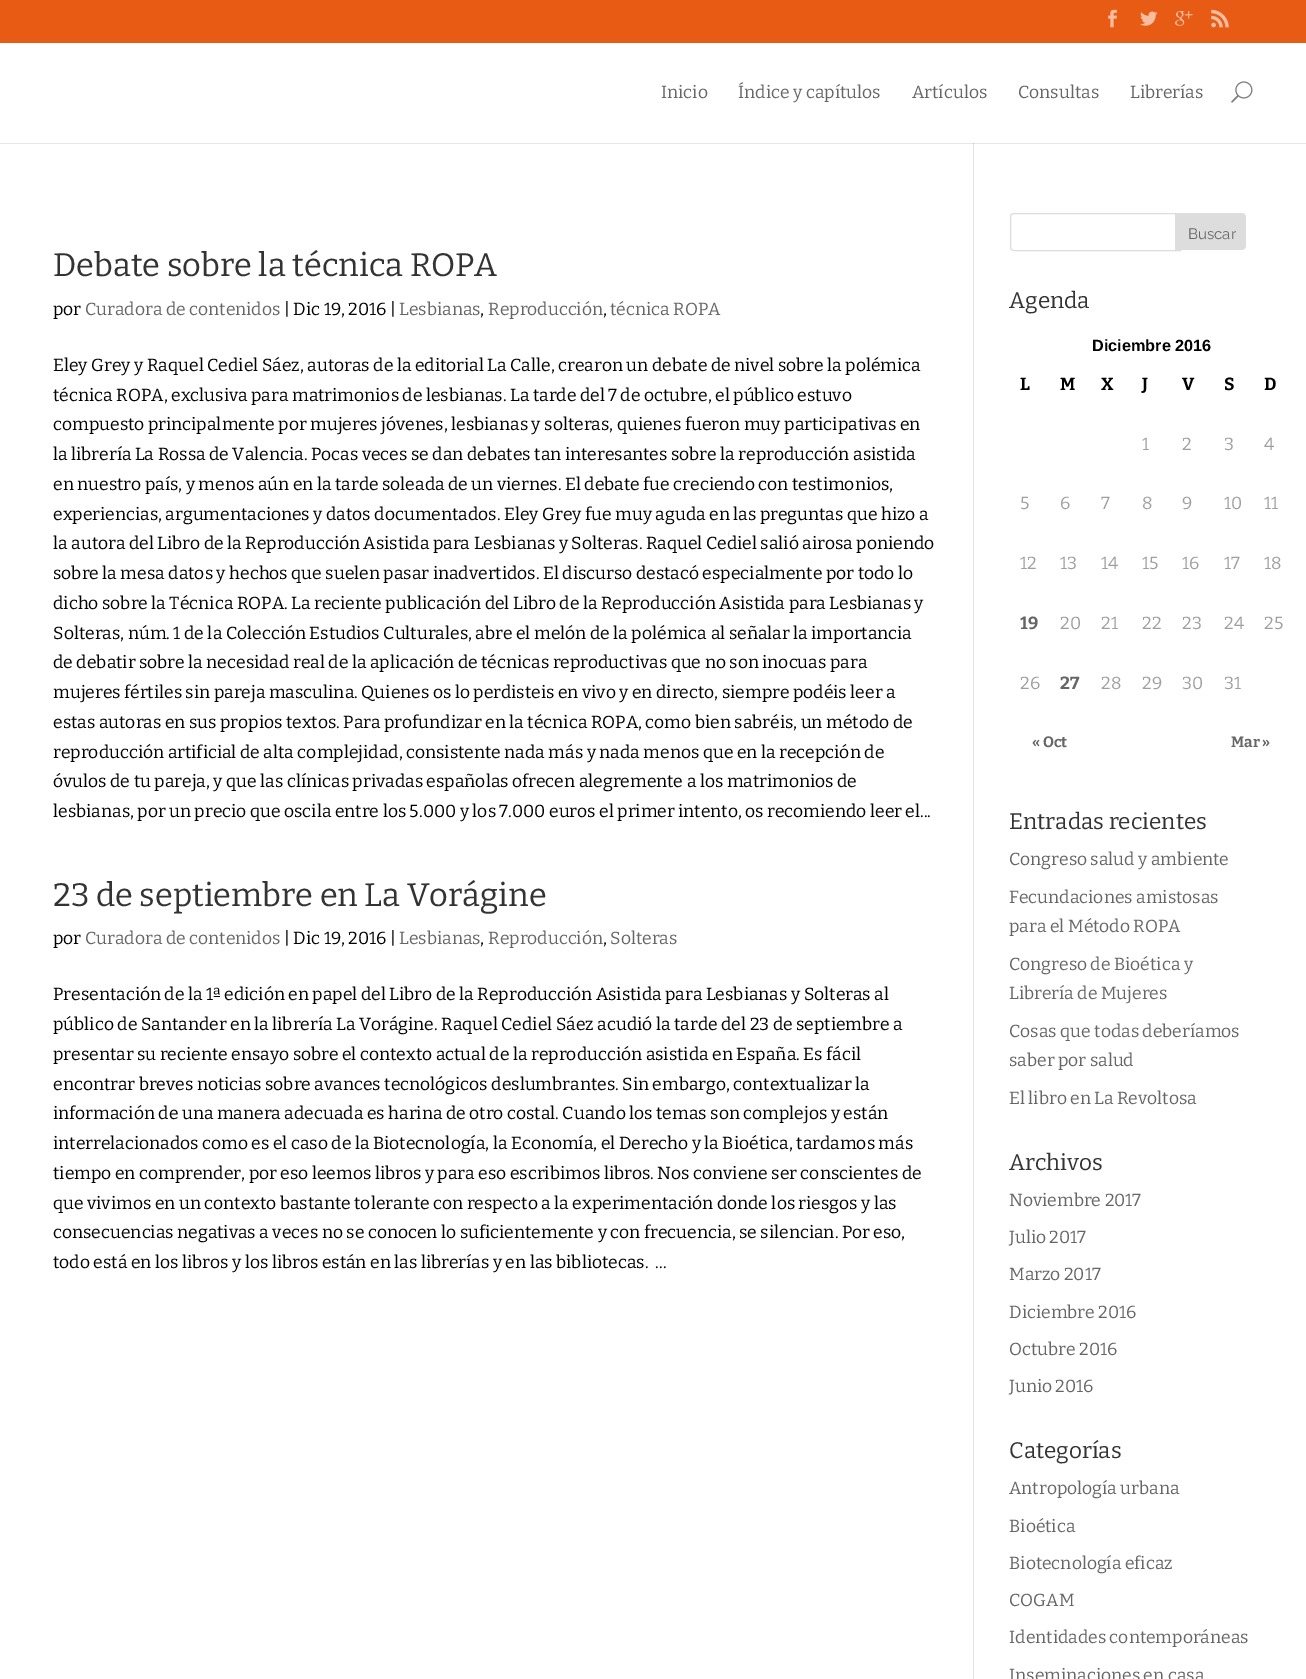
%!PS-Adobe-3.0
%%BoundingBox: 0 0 1306 1679
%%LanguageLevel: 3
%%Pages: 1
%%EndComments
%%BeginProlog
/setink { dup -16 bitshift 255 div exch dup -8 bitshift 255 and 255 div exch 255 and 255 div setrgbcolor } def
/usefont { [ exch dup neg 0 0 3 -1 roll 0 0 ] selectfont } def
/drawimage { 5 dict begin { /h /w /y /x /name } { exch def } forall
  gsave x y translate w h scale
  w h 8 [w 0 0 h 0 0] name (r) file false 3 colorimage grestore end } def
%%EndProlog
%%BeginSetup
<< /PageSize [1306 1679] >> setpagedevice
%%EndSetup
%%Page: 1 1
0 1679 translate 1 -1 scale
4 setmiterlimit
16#FFFFFF setink
0 0 1306 1679 rectfill
16#E6E6E6 setink
0 143 1306 1 rectfill
16#E85B15 setink
0 0 1306 43 rectfill
(img1.raw) 1108 9 9 19 drawimage
(img2.raw) 1140 11 18 15 drawimage
(img3.raw) 1175 11 18 15 drawimage
(img4.raw) 1211 9 18 19 drawimage
[
    [973 140 1 1539 16#E2E2E2]
    [973 142 1 2 16#CBCBCB]
    [973 140 1 3 16#FFFFFF]
] { aload pop setink rectfill } forall
/Bitter-Regular 17.5 usefont
16#666666 setink
[
    [(Inicio) 661 98]
    [(Índice y capítulos) 738 98]
    [(Artículos) 912 98]
    [(Consultas) 1018 98]
    [(Librerías) 1130 98]
] { aload pop moveto show } forall
(img5.raw) 1231 81 22 22 drawimage
/Bitter-Regular 32.5 usefont
16#333333 setink
53 276 moveto (Debate sobre la técnica ROPA) show
/Bitter-Regular 17.5 usefont
16#000000 setink
53 315 moveto (por) show
16#666666 setink
85 315 moveto (Curadora de contenidos) show
16#000000 setink
284 315 moveto (| Dic 19, 2016 |) show
16#666666 setink
399 315 moveto (Lesbianas) show
16#000000 setink
480 315 moveto (,) show
16#666666 setink
488 315 moveto (Reproducción) show
16#000000 setink
603 315 moveto (,) show
16#666666 setink
610 315 moveto (técnica ROPA) show
16#000000 setink
[
    [(Eley Grey y Raquel Cediel Sáez, autoras de la editorial La Calle, crearon un debate de nivel sobre la polémica) 53 371]
    [(técnica ROPA, exclusiva para matrimonios de lesbianas. La tarde del 7 de octubre, el público estuvo) 53 401]
    [(compuesto principalmente por mujeres jóvenes, lesbianas y solteras, quienes fueron muy participativas en) 53 430]
    [(la librería La Rossa de Valencia. Pocas veces se dan debates tan interesantes sobre la reproducción asistida) 53 460]
    [(en nuestro país, y menos aún en la tarde soleada de un viernes. El debate fue creciendo con testimonios,) 53 490]
    [(experiencias, argumentaciones y datos documentados. Eley Grey fue muy aguda en las preguntas que hizo a) 53 520]
    [(la autora del Libro de la Reproducción Asistida para Lesbianas y Solteras. Raquel Cediel salió airosa poniendo) 53 549]
    [(sobre la mesa datos y hechos que suelen pasar inadvertidos. El discurso destacó especialmente por todo lo) 53 579]
    [(dicho sobre la Técnica ROPA. La reciente publicación del Libro de la Reproducción Asistida para Lesbianas y) 53 609]
    [(Solteras, núm. 1 de la Colección Estudios Culturales, abre el melón de la polémica al señalar la importancia) 53 639]
    [(de debatir sobre la necesidad real de la aplicación de técnicas reproductivas que no son inocuas para) 53 668]
    [(mujeres fértiles sin pareja masculina. Quienes os lo perdisteis en vivo y en directo, siempre podéis leer a) 53 698]
    [(estas autoras en sus propios textos. Para profundizar en la técnica ROPA, como bien sabréis, un método de) 53 728]
    [(reproducción artificial de alta complejidad, consistente nada más y nada menos que en la recepción de) 53 758]
    [(óvulos de tu pareja, y que las clínicas privadas españolas ofrecen alegremente a los matrimonios de) 53 787]
    [(lesbianas, por un precio que oscila entre los 5.000 y los 7.000 euros el primer intento, os recomiendo leer el...) 53 817]
] { aload pop moveto show } forall
/Bitter-Regular 32.5 usefont
16#333333 setink
53 906 moveto (23 de septiembre en La Vorágine) show
/Bitter-Regular 17.5 usefont
16#000000 setink
53 944 moveto (por) show
16#666666 setink
85 944 moveto (Curadora de contenidos) show
16#000000 setink
284 944 moveto (| Dic 19, 2016 |) show
16#666666 setink
399 944 moveto (Lesbianas) show
16#000000 setink
480 944 moveto (,) show
16#666666 setink
488 944 moveto (Reproducción) show
16#000000 setink
603 944 moveto (,) show
16#666666 setink
610 944 moveto (Solteras) show
16#000000 setink
[
    [(Presentación de la 1ª edición en papel del Libro de la Reproducción Asistida para Lesbianas y Solteras al) 53 1000]
    [(público de Santander en la librería La Vorágine. Raquel Cediel Sáez acudió la tarde del 23 de septiembre a) 53 1030]
    [(presentar su reciente ensayo sobre el contexto actual de la reproducción asistida en España. Es fácil) 53 1060]
    [(encontrar breves noticias sobre avances tecnológicos deslumbrantes. Sin embargo, contextualizar la) 53 1090]
    [(información de una manera adecuada es harina de otro costal. Cuando los temas son complejos y están) 53 1119]
    [(interrelacionados como es el caso de la Biotecnología, la Economía, el Derecho y la Bioética, tardamos más) 53 1149]
    [(tiempo en comprender, por eso leemos libros y para eso escribimos libros. Nos conviene ser conscientes de) 53 1179]
    [(que vivimos en un contexto bastante tolerante con respecto a la experimentación donde los riesgos y las) 53 1209]
    [(consecuencias negativas a veces no se conocen lo suficientemente y con frecuencia, se silencian. Por eso,) 53 1238]
    [(todo está en los libros y los libros están en las librerías y en las bibliotecas.  ...) 53 1268]
] { aload pop moveto show } forall
16#DDDDDD setink
1014 213.5 moveto 1180.5 213.5 lineto 1180.5 250.5 lineto 1014 250.5 lineto 1012 250.5 1010.5 249 1010.5 247 curveto 1010.5 217 lineto 1010.5 215 1012 213.5 1014 213.5 curveto closepath stroke
1175 213 moveto 1242 213 lineto 1244 213 1246 215 1246 217 curveto 1246 246 lineto 1246 248 1244 250 1242 250 curveto 1175 250 lineto closepath fill
/Raleway-Regular 15 usefont
16#666666 setink
1188 239 moveto (Buscar) show
/Bitter-Regular 22.5 usefont
16#333333 setink
1009 308 moveto (Agenda) show
/LiberationSans-Bold 16.25 usefont
16#000000 setink
1092 351 moveto (Diciembre 2016) show
/Bitter-Bold 17.5 usefont
[
    [(L) 1020 390]
    [(M) 1060 390]
    [(X) 1101 390]
    [(J) 1142 390]
    [(V) 1182 390]
    [(S) 1224 390]
    [(D) 1264 390]
] { aload pop moveto show } forall
/Bitter-Regular 17.5 usefont
16#9F9F9F setink
[
    [(1) 1142 450]
    [(2) 1182 450]
    [(3) 1224 450]
    [(4) 1264 450]
    [(5) 1020 509]
    [(6) 1060 509]
    [(7) 1101 509]
    [(8) 1142 509]
    [(9) 1182 509]
    [(10) 1224 509]
    [(11) 1264 509]
    [(12) 1020 569]
    [(13) 1060 569]
    [(14) 1101 569]
    [(15) 1142 569]
    [(16) 1182 569]
    [(17) 1224 569]
    [(18) 1264 569]
] { aload pop moveto show } forall
/Bitter-Bold 17.5 usefont
16#666666 setink
1020 629 moveto (19) show
/Bitter-Regular 17.5 usefont
16#9F9F9F setink
[
    [(20) 1060 629]
    [(21) 1101 629]
    [(22) 1142 629]
    [(23) 1182 629]
    [(24) 1224 629]
    [(25) 1264 629]
    [(26) 1020 689]
] { aload pop moveto show } forall
/Bitter-Bold 17.5 usefont
16#666666 setink
1060 689 moveto (27) show
/Bitter-Regular 17.5 usefont
16#9F9F9F setink
[
    [(28) 1101 689]
    [(29) 1142 689]
    [(30) 1182 689]
    [(31) 1224 689]
] { aload pop moveto show } forall
/Bitter-Bold 15 usefont
16#666666 setink
1032 747 moveto (« Oct) show
1231 747 moveto (Mar ») show
/Bitter-Regular 22.5 usefont
16#333333 setink
1009 829 moveto (Entradas recientes) show
/Bitter-Regular 17.5 usefont
16#666666 setink
[
    [(Congreso salud y ambiente) 1009 865]
    [(Fecundaciones amistosas) 1009 903]
    [(para el Método ROPA) 1009 932]
    [(Congreso de Bioética y) 1009 970]
    [(Librería de Mujeres) 1009 999]
    [(Cosas que todas deberíamos) 1009 1037]
    [(saber por salud) 1009 1066]
    [(El libro en La Revoltosa) 1009 1104]
] { aload pop moveto show } forall
/Bitter-Regular 22.5 usefont
16#333333 setink
1009 1170 moveto (Archivos) show
/Bitter-Regular 17.5 usefont
16#666666 setink
[
    [(Noviembre 2017) 1009 1206]
    [(Julio 2017) 1009 1243]
    [(Marzo 2017) 1009 1280]
    [(Diciembre 2016) 1009 1318]
    [(Octubre 2016) 1009 1355]
    [(Junio 2016) 1009 1392]
] { aload pop moveto show } forall
/Bitter-Regular 22.5 usefont
16#333333 setink
1009 1458 moveto (Categorías) show
/Bitter-Regular 17.5 usefont
16#666666 setink
[
    [(Antropología urbana) 1009 1494]
    [(Bioética) 1009 1532]
    [(Biotecnología eficaz) 1009 1569]
    [(COGAM) 1009 1606]
    [(Identidades contemporáneas) 1009 1643]
    [(Inseminaciones en casa) 1009 1681]
] { aload pop moveto show } forall
showpage
%%EOF
